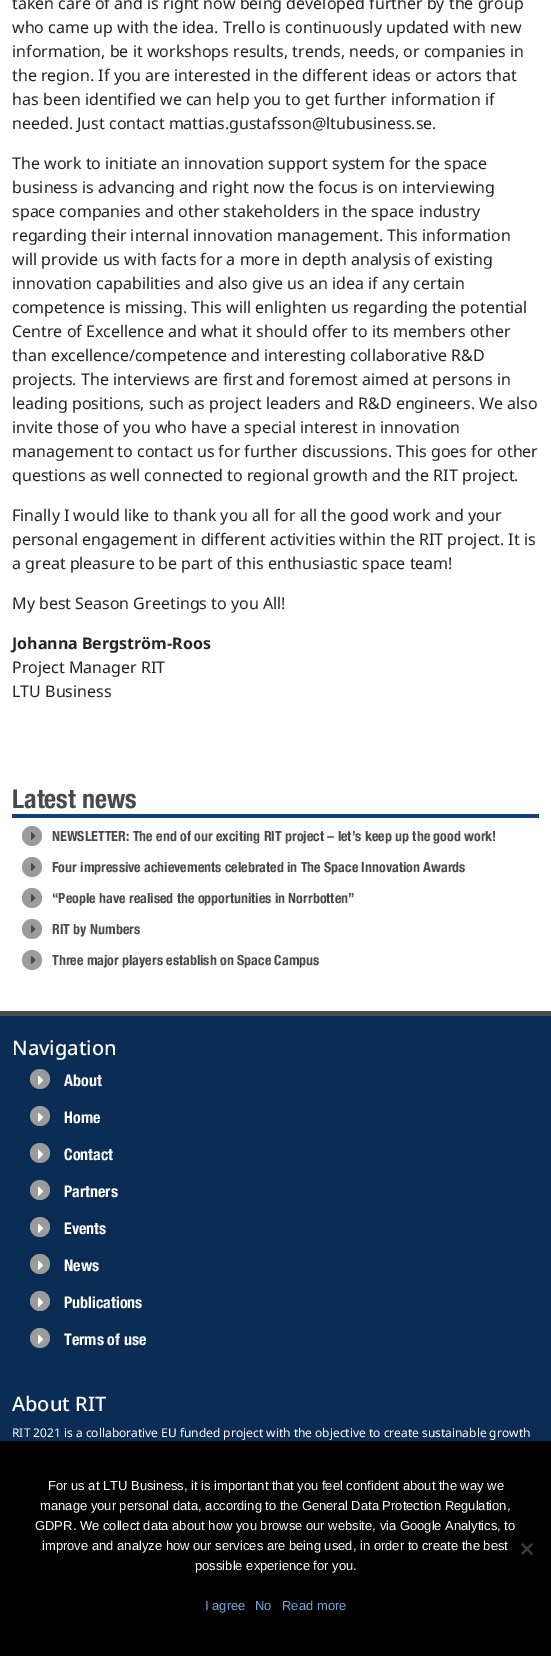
%!PS-Adobe-3.0
%%BoundingBox: 0 0 551 1656
%%LanguageLevel: 3
%%Pages: 1
%%EndComments
%%BeginProlog
/setink { dup -16 bitshift 255 div exch dup -8 bitshift 255 and 255 div exch 255 and 255 div setrgbcolor } def
/usefont { [ exch dup neg 0 0 3 -1 roll 0 0 ] selectfont } def
/disc { newpath 0 360 arc closepath } def
/drawimage { 5 dict begin { /h /w /y /x /name } { exch def } forall
  gsave x y translate w h scale
  w h 8 [w 0 0 h 0 0] name (r) file false 3 colorimage grestore end } def
%%EndProlog
%%BeginSetup
<< /PageSize [551 1656] >> setpagedevice
%%EndSetup
%%Page: 1 1
0 1656 translate 1 -1 scale
4 setmiterlimit
16#FFFFFF setink
0 0 551 1656 rectfill
/NotoSans-Regular 16 usefont
16#212529 setink
[
    [(taken care of and is right now being developed further by the group) 12 9]
    [(who came up with the idea. Trello is continuously updated with new) 12 33]
    [(information, be it workshops results, trends, needs, or companies in) 12 57]
    [(the region. If you are interested in the different ideas or actors that) 12 81]
    [(has been identified we can help you to get further information if) 12 105]
    [(needed. Just contact mattias.gustafsson@ltubusiness.se.) 12 129]
    [(The work to initiate an innovation support system for the space) 12 169]
    [(business is advancing and right now the focus is on interviewing) 12 193]
    [(space companies and other stakeholders in the space industry) 12 217]
    [(regarding their internal innovation management. This information) 12 241]
    [(will provide us with facts for a more in depth analysis of existing) 12 265]
    [(innovation capabilities and also give us an idea if any certain) 12 289]
    [(competence is missing. This will enlighten us regarding the potential) 12 313]
    [(Centre of Excellence and what it should offer to its members other) 12 337]
    [(than excellence/competence and interesting collaborative R&D) 12 361]
    [(projects. The interviews are first and foremost aimed at persons in) 12 385]
    [(leading positions, such as project leaders and R&D engineers. We also) 12 409]
    [(invite those of you who have a special interest in innovation) 12 433]
    [(management to contact us for further discussions. This goes for other) 12 457]
    [(questions as well connected to regional growth and the RIT project.) 12 481]
    [(Finally I would like to thank you all for all the good work and your) 12 521]
    [(personal engagement in different activities within the RIT project. It is) 12 545]
    [(a great pleasure to be part of this enthusiastic space team!) 12 569]
    [(My best Season Greetings to you All!) 12 609]
] { aload pop moveto show } forall
/NotoSans-Bold 16 usefont
12 649 moveto (Johanna Bergström-Roos) show
/NotoSans-Regular 16 usefont
12 673 moveto (Project Manager RIT) show
12 697 moveto (LTU Business) show
/HelveticaNeue-Bold 26 usefont
16#4A4A4A setink
12 808 moveto (Latest news) show
16#11427B setink
12 814 527 4 rectfill
16#9B9B9B setink
32 836 10 disc fill
(img1.raw) 31 832 5 8 drawimage
/HelveticaNeue-Bold 14 usefont
16#4A4A4A setink
52 841 moveto (NEWSLETTER: The end of our exciting RIT project – let’s keep up the good work!) show
16#9B9B9B setink
32 867 10 disc fill
(img1.raw) 31 863 5 8 drawimage
16#4A4A4A setink
52 872 moveto (Four impressive achievements celebrated in The Space Innovation Awards) show
16#9B9B9B setink
32 898 10 disc fill
(img1.raw) 31 894 5 8 drawimage
16#4A4A4A setink
52 903 moveto (“People have realised the opportunities in Norrbotten”) show
16#9B9B9B setink
32 929 10 disc fill
(img1.raw) 31 925 5 8 drawimage
16#4A4A4A setink
52 934 moveto (RIT by Numbers) show
16#9B9B9B setink
32 960 10 disc fill
(img1.raw) 31 956 5 8 drawimage
16#4A4A4A setink
52 965 moveto (Three major players establish on Space Campus) show
16#0B2D55 setink
0 1016 551 425 rectfill
16#4A4A4A setink
0 1011 551 5 rectfill
/NotoSans-Medium 20 usefont
16#FFFFFF setink
12 1055 moveto (Navigation) show
16#9B9B9B setink
40 1079 10 disc fill
(img2.raw) 38 1075 6 10 drawimage
/HelveticaNeue-Bold 16 usefont
16#FFFFFF setink
64 1086 moveto (About) show
16#9B9B9B setink
40 1116 10 disc fill
(img2.raw) 38 1112 6 10 drawimage
16#FFFFFF setink
64 1123 moveto (Home) show
16#9B9B9B setink
40 1153 10 disc fill
(img2.raw) 38 1149 6 10 drawimage
16#FFFFFF setink
64 1160 moveto (Contact) show
16#9B9B9B setink
40 1190 10 disc fill
(img2.raw) 38 1186 6 10 drawimage
16#FFFFFF setink
64 1197 moveto (Partners) show
16#9B9B9B setink
40 1227 10 disc fill
(img2.raw) 38 1223 6 10 drawimage
16#FFFFFF setink
64 1234 moveto (Events) show
16#9B9B9B setink
40 1264 10 disc fill
(img2.raw) 38 1260 6 10 drawimage
16#FFFFFF setink
64 1271 moveto (News) show
16#9B9B9B setink
40 1301 10 disc fill
(img2.raw) 38 1297 6 10 drawimage
16#FFFFFF setink
64 1308 moveto (Publications) show
16#9B9B9B setink
40 1338 10 disc fill
(img2.raw) 38 1334 6 10 drawimage
16#FFFFFF setink
64 1345 moveto (Terms of use) show
/NotoSans-Medium 20 usefont
12 1411 moveto (About RIT) show
/NotoSans-Regular 12 usefont
12 1437 moveto (RIT 2021 is a collaborative EU funded project with the objective to create sustainable growth) show
16#000000 setink
0 1441 551 215 rectfill
/LiberationSans-Regular 13 usefont
16#FFFFFF setink
[
    [(For us at LTU Business, it is important that you feel confident about the way we) 48 1490]
    [(manage your personal data, according to the General Data Protection Regulation,) 40 1510]
    [(GDPR. We collect data about how you browse our website, via Google Analytics, to) 35 1530]
    [(improve and analyze how our services are being used, in order to create the best) 42 1550]
    [(possible experience for you.) 195 1570]
] { aload pop moveto show } forall
16#404040 setink
531.5 1543 moveto 533 1544.5 lineto 522.5 1555 lineto 521 1553.5 lineto closepath fill
521 1544.5 moveto 522.5 1543 lineto 533 1553.5 lineto 531.5 1555 lineto closepath fill
16#7AA5D7 setink
[
    [(I agree) 205 1610]
    [(No) 255 1610]
    [(Read more) 282 1610]
] { aload pop moveto show } forall
showpage
%%EOF
